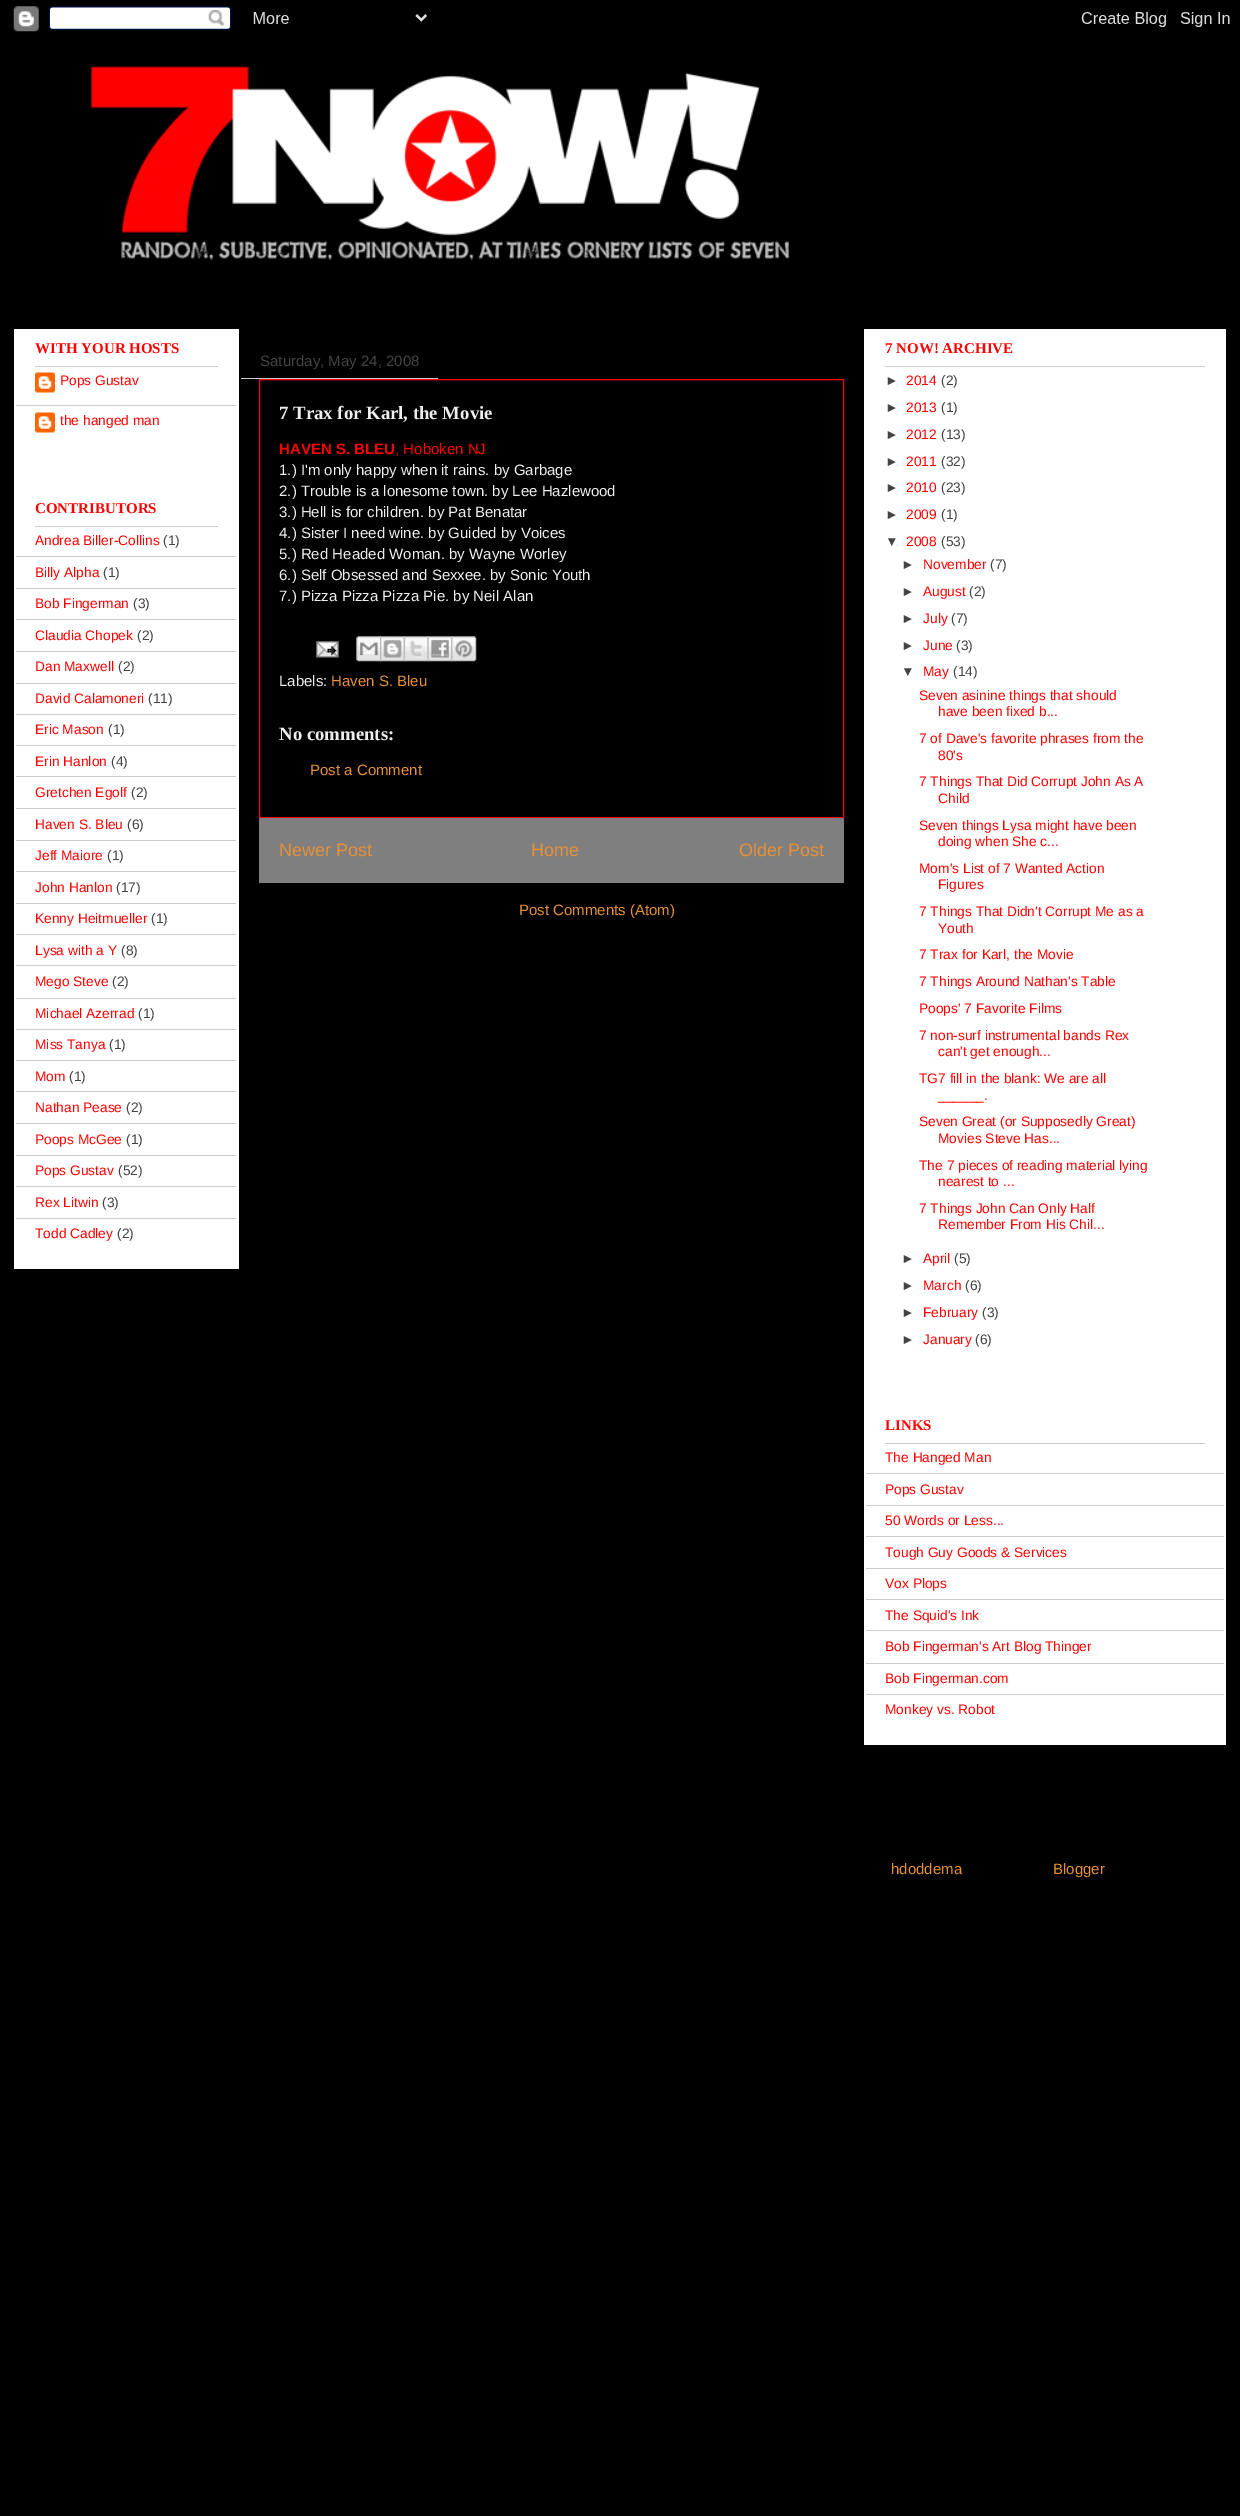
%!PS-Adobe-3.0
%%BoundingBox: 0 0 1240 2516
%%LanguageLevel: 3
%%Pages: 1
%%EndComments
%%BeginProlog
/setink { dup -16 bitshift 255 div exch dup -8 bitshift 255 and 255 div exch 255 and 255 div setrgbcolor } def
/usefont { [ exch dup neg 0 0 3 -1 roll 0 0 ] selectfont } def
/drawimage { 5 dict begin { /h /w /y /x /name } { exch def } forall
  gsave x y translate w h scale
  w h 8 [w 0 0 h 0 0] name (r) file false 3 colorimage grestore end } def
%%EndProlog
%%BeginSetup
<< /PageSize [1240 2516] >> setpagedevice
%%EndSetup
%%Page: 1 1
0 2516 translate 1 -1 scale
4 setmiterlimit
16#000000 setink
0 0 1240 2516 rectfill
(img1.raw) 13 6 1217 26 drawimage
(img2.raw) 91 66 699 195 drawimage
16#FFFFFF setink
14 329 225 940 rectfill
16#CCCCCC setink
35 366 183 1 rectfill
/LiberationSerif-Bold 15 usefont
16#FF0000 setink
35 353 moveto (WITH YOUR HOSTS) show
16#CCCCCC setink
16 405 220 1 rectfill
(img3.raw) 35 372 20 21 drawimage
/LiberationSans-Regular 13.75 usefont
16#FF0000 setink
60 385 moveto (Pops Gustav) show
(img3.raw) 35 412 20 21 drawimage
60 425 moveto (the hanged man) show
16#CCCCCC setink
35 526 183 1 rectfill
/LiberationSerif-Bold 15 usefont
16#FF0000 setink
35 513 moveto (CONTRIBUTORS) show
16#CCCCCC setink
16 556 220 1 rectfill
/LiberationSans-Regular 13.75 usefont
16#FF0000 setink
35 545 moveto (Andrea Biller-Collins) show
16#444444 setink
163 545 moveto (\(1\)) show
16#CCCCCC setink
16 588 220 1 rectfill
16#FF0000 setink
35 577 moveto (Billy Alpha) show
16#444444 setink
103 577 moveto (\(1\)) show
16#CCCCCC setink
16 619 220 1 rectfill
16#FF0000 setink
35 608 moveto (Bob Fingerman) show
16#444444 setink
133 608 moveto (\(3\)) show
16#CCCCCC setink
16 651 220 1 rectfill
16#FF0000 setink
35 640 moveto (Claudia Chopek) show
16#444444 setink
137 640 moveto (\(2\)) show
16#CCCCCC setink
16 683 220 1 rectfill
16#FF0000 setink
35 671 moveto (Dan Maxwell) show
16#444444 setink
118 671 moveto (\(2\)) show
16#CCCCCC setink
16 714 220 1 rectfill
16#FF0000 setink
35 703 moveto (David Calamoneri) show
16#444444 setink
148 703 moveto (\(11\)) show
16#CCCCCC setink
16 745 220 1 rectfill
16#FF0000 setink
35 734 moveto (Eric Mason) show
16#444444 setink
108 734 moveto (\(1\)) show
16#CCCCCC setink
16 776 220 1 rectfill
16#FF0000 setink
35 766 moveto (Erin Hanlon) show
16#444444 setink
111 766 moveto (\(4\)) show
16#CCCCCC setink
16 808 220 1 rectfill
16#FF0000 setink
35 797 moveto (Gretchen Egolf) show
16#444444 setink
131 797 moveto (\(2\)) show
16#CCCCCC setink
16 840 220 1 rectfill
16#FF0000 setink
35 829 moveto (Haven S. Bleu) show
16#444444 setink
127 829 moveto (\(6\)) show
16#CCCCCC setink
16 871 220 1 rectfill
16#FF0000 setink
35 860 moveto (Jeff Maiore) show
16#444444 setink
107 860 moveto (\(1\)) show
16#CCCCCC setink
16 903 220 1 rectfill
16#FF0000 setink
35 892 moveto (John Hanlon) show
16#444444 setink
116 892 moveto (\(17\)) show
16#CCCCCC setink
16 934 220 1 rectfill
16#FF0000 setink
35 923 moveto (Kenny Heitmueller) show
16#444444 setink
151 923 moveto (\(1\)) show
16#CCCCCC setink
16 965 220 1 rectfill
16#FF0000 setink
35 955 moveto (Lysa with a Y) show
16#444444 setink
121 955 moveto (\(8\)) show
16#CCCCCC setink
16 998 220 1 rectfill
16#FF0000 setink
35 986 moveto (Mego Steve) show
16#444444 setink
112 986 moveto (\(2\)) show
16#CCCCCC setink
16 1029 220 1 rectfill
16#FF0000 setink
35 1018 moveto (Michael Azerrad) show
16#444444 setink
138 1018 moveto (\(1\)) show
16#CCCCCC setink
16 1060 220 1 rectfill
16#FF0000 setink
35 1049 moveto (Miss Tanya) show
16#444444 setink
109 1049 moveto (\(1\)) show
16#CCCCCC setink
16 1091 220 1 rectfill
16#FF0000 setink
35 1081 moveto (Mom) show
16#444444 setink
69 1081 moveto (\(1\)) show
16#CCCCCC setink
16 1123 220 1 rectfill
16#FF0000 setink
35 1112 moveto (Nathan Pease) show
16#444444 setink
126 1112 moveto (\(2\)) show
16#CCCCCC setink
16 1155 220 1 rectfill
16#FF0000 setink
35 1144 moveto (Poops McGee) show
16#444444 setink
126 1144 moveto (\(1\)) show
16#CCCCCC setink
16 1186 220 1 rectfill
16#FF0000 setink
35 1175 moveto (Pops Gustav) show
16#444444 setink
118 1175 moveto (\(52\)) show
16#CCCCCC setink
16 1218 220 1 rectfill
16#FF0000 setink
35 1207 moveto (Rex Litwin) show
16#444444 setink
102 1207 moveto (\(3\)) show
16#FF0000 setink
35 1238 moveto (Todd Cadley) show
16#444444 setink
117 1238 moveto (\(2\)) show
16#FF0000 setink
259.5 379.5 584 438 rectstroke
16#CCCCCC setink
241 378 197 1 rectfill
/LiberationSans-Regular 15 usefont
16#444444 setink
260 366 moveto (Saturday, May 24, 2008) show
/LiberationSerif-Bold 18.75 usefont
16#EEEEEE setink
279 419 moveto (7 Trax for Karl, the Movie) show
/LiberationSans-Bold 15 usefont
16#FF0000 setink
279 454 moveto (HAVEN S. BLEU) show
/LiberationSans-Regular 15 usefont
395 454 moveto (, Hoboken NJ) show
16#EEEEEE setink
[
    [(1.\) I'm only happy when it rains. by Garbage) 279 475]
    [(2.\) Trouble is a lonesome town. by Lee Hazlewood) 279 496]
    [(3.\) Hell is for children. by Pat Benatar) 279 517]
    [(4.\) Sister I need wine. by Guided by Voices) 279 538]
    [(5.\) Red Headed Woman. by Wayne Worley) 279 559]
    [(6.\) Self Obsessed and Sexxee. by Sonic Youth) 279 580]
    [(7.\) Pizza Pizza Pizza Pie. by Neil Alan) 279 601]
] { aload pop moveto show } forall
(img4.raw) 316 641 23 17 drawimage
(img5.raw) 356 636 26 26 drawimage
(img6.raw) 380 636 25 26 drawimage
(img7.raw) 403 636 26 26 drawimage
(img8.raw) 427 636 26 26 drawimage
(img9.raw) 451 636 26 26 drawimage
279 686 moveto (Labels:) show
16#E69138 setink
331 686 moveto (Haven S. Bleu) show
/LiberationSerif-Bold 18.75 usefont
16#EEEEEE setink
279 740 moveto (No comments:) show
/LiberationSans-Regular 15 usefont
16#E69138 setink
310 775 moveto (Post a Comment) show
16#7F7F7F setink
259 818 585 65 rectfill
/LiberationSans-Regular 18 usefont
16#E69138 setink
[
    [(Newer Post) 279 856]
    [(Home) 531 856]
    [(Older Post) 739 856]
] { aload pop moveto show } forall
/LiberationSans-Regular 15 usefont
519 915 moveto (Post Comments \(Atom\)) show
16#FFFFFF setink
864 329 362 1416 rectfill
16#CCCCCC setink
885 366 320 1 rectfill
/LiberationSerif-Bold 15 usefont
16#FF0000 setink
885 353 moveto (7 NOW! ARCHIVE) show
/LiberationSans-Regular 13.75 usefont
16#444444 setink
885 385 moveto (►) show
16#FF0000 setink
906 385 moveto (2014) show
16#444444 setink
941 385 moveto (\(2\)) show
885 412 moveto (►) show
16#FF0000 setink
906 412 moveto (2013) show
16#444444 setink
941 412 moveto (\(1\)) show
885 439 moveto (►) show
16#FF0000 setink
906 439 moveto (2012) show
16#444444 setink
941 439 moveto (\(13\)) show
885 466 moveto (►) show
16#FF0000 setink
906 466 moveto (2011) show
16#444444 setink
941 466 moveto (\(32\)) show
885 492 moveto (►) show
16#FF0000 setink
906 492 moveto (2010) show
16#444444 setink
941 492 moveto (\(23\)) show
885 519 moveto (►) show
16#FF0000 setink
906 519 moveto (2009) show
16#444444 setink
941 519 moveto (\(1\)) show
885 546 moveto (▼) show
16#FF0000 setink
906 546 moveto (2008) show
16#444444 setink
941 546 moveto (\(53\)) show
901 569 moveto (►) show
16#FF0000 setink
923 569 moveto (November) show
16#444444 setink
990 569 moveto (\(7\)) show
901 596 moveto (►) show
16#FF0000 setink
923 596 moveto (August) show
16#444444 setink
969 596 moveto (\(2\)) show
901 623 moveto (►) show
16#FF0000 setink
923 623 moveto (July) show
16#444444 setink
951 623 moveto (\(7\)) show
901 650 moveto (►) show
16#FF0000 setink
923 650 moveto (June) show
16#444444 setink
956 650 moveto (\(3\)) show
901 676 moveto (▼) show
16#FF0000 setink
923 676 moveto (May) show
16#444444 setink
953 676 moveto (\(14\)) show
16#FF0000 setink
[
    [(Seven asinine things that should) 919 700]
    [(have been fixed b...) 938 716]
    [(7 of Dave's favorite phrases from the) 919 743]
    [(80's) 938 760]
    [(7 Things That Did Corrupt John As A) 919 786]
    [(Child) 938 803]
    [(Seven things Lysa might have been) 919 830]
    [(doing when She c...) 938 846]
    [(Mom's List of 7 Wanted Action) 919 873]
    [(Figures) 938 889]
    [(7 Things That Didn't Corrupt Me as a) 919 916]
    [(Youth) 938 933]
    [(7 Trax for Karl, the Movie) 919 959]
    [(7 Things Around Nathan's Table) 919 986]
    [(Poops' 7 Favorite Films) 919 1013]
    [(7 non-surf instrumental bands Rex) 919 1040]
    [(can't get enough...) 938 1056]
    [(TG7 fill in the blank: We are all) 919 1083]
    [(______.) 938 1100]
    [(Seven Great \(or Supposedly Great\)) 919 1126]
    [(Movies Steve Has...) 938 1143]
    [(The 7 pieces of reading material lying) 919 1170]
    [(nearest to ...) 938 1186]
    [(7 Things John Can Only Half) 919 1213]
    [(Remember From His Chil...) 938 1229]
] { aload pop moveto show } forall
16#444444 setink
901 1263 moveto (►) show
16#FF0000 setink
923 1263 moveto (April) show
16#444444 setink
954 1263 moveto (\(5\)) show
901 1290 moveto (►) show
16#FF0000 setink
923 1290 moveto (March) show
16#444444 setink
965 1290 moveto (\(6\)) show
901 1317 moveto (►) show
16#FF0000 setink
923 1317 moveto (February) show
16#444444 setink
982 1317 moveto (\(3\)) show
901 1344 moveto (►) show
16#FF0000 setink
923 1344 moveto (January) show
16#444444 setink
975 1344 moveto (\(6\)) show
16#CCCCCC setink
885 1443 320 1 rectfill
/LiberationSerif-Bold 15 usefont
16#FF0000 setink
885 1430 moveto (LINKS) show
16#CCCCCC setink
866 1473 358 1 rectfill
/LiberationSans-Regular 13.75 usefont
16#FF0000 setink
885 1462 moveto (The Hanged Man) show
16#CCCCCC setink
866 1505 358 1 rectfill
16#FF0000 setink
885 1494 moveto (Pops Gustav) show
16#CCCCCC setink
866 1536 358 1 rectfill
16#FF0000 setink
885 1525 moveto (50 Words or Less...) show
16#CCCCCC setink
866 1568 358 1 rectfill
16#FF0000 setink
885 1557 moveto (Tough Guy Goods & Services) show
16#CCCCCC setink
866 1599 358 1 rectfill
16#FF0000 setink
885 1588 moveto (Vox Plops) show
16#CCCCCC setink
866 1630 358 1 rectfill
16#FF0000 setink
885 1620 moveto (The Squid's Ink) show
16#CCCCCC setink
866 1663 358 1 rectfill
16#FF0000 setink
885 1651 moveto (Bob Fingerman's Art Blog Thinger) show
16#CCCCCC setink
866 1694 358 1 rectfill
16#FF0000 setink
885 1683 moveto (Bob Fingerman.com) show
885 1714 moveto (Monkey vs. Robot) show
/LiberationSans-Regular 15 usefont
16#E69138 setink
891 1874 moveto (hdoddema) show
1053 1874 moveto (Blogger) show
showpage
%%EOF
